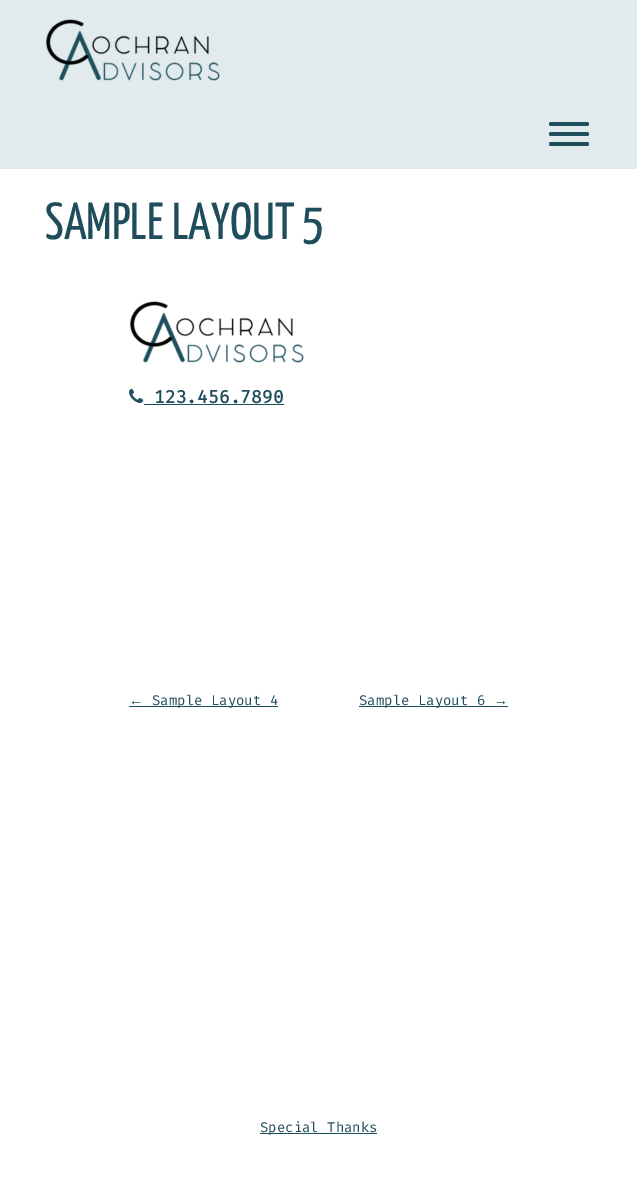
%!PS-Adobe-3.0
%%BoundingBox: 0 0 637 1183
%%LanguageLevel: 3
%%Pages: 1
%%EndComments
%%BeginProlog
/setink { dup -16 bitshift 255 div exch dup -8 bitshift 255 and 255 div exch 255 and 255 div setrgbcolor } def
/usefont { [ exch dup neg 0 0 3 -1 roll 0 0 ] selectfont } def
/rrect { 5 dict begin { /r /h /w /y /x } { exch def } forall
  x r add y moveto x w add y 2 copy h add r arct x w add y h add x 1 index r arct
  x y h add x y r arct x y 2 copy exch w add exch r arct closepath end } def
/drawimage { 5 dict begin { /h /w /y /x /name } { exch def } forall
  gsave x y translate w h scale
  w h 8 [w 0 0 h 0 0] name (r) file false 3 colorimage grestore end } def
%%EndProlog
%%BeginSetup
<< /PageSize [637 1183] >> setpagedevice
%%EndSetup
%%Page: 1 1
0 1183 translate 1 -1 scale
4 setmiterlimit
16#FFFFFF setink
0 0 637 1183 rectfill
16#E1EBED setink
0 0 637 169 rectfill
(img1.raw) 45 19 175 62 drawimage
16#1E4D5B setink
549 142 40 4 2 rrect fill
549 122 40 4 2 rrect fill
549 132 40 4 2 rrect fill
/YanoneKaffeesatz-ExtraLight 52 usefont
45 239 moveto (SAMPLE LAYOUT 5) show
(img2.raw) 129 301 175 62 drawimage
(img3.raw) 129 388 15 15 drawimage
/FiraMono-Bold 18 usefont
154 403 moveto (123.456.7890) show
144 404 140 1 rectfill
/LiberationSerif-Regular 14 usefont
129 705 moveto (←) show
129 706 149 1 rectfill
/FiraMono-Regular 14 usefont
152 705 moveto (Sample Layout 4) show
359 706 149 1 rectfill
359 705 moveto (Sample Layout 6) show
/LiberationSerif-Regular 14 usefont
494 705 moveto (→) show
260 1133 117 1 rectfill
/FiraMono-Regular 14 usefont
260 1132 moveto (Special Thanks) show
showpage
%%EOF
